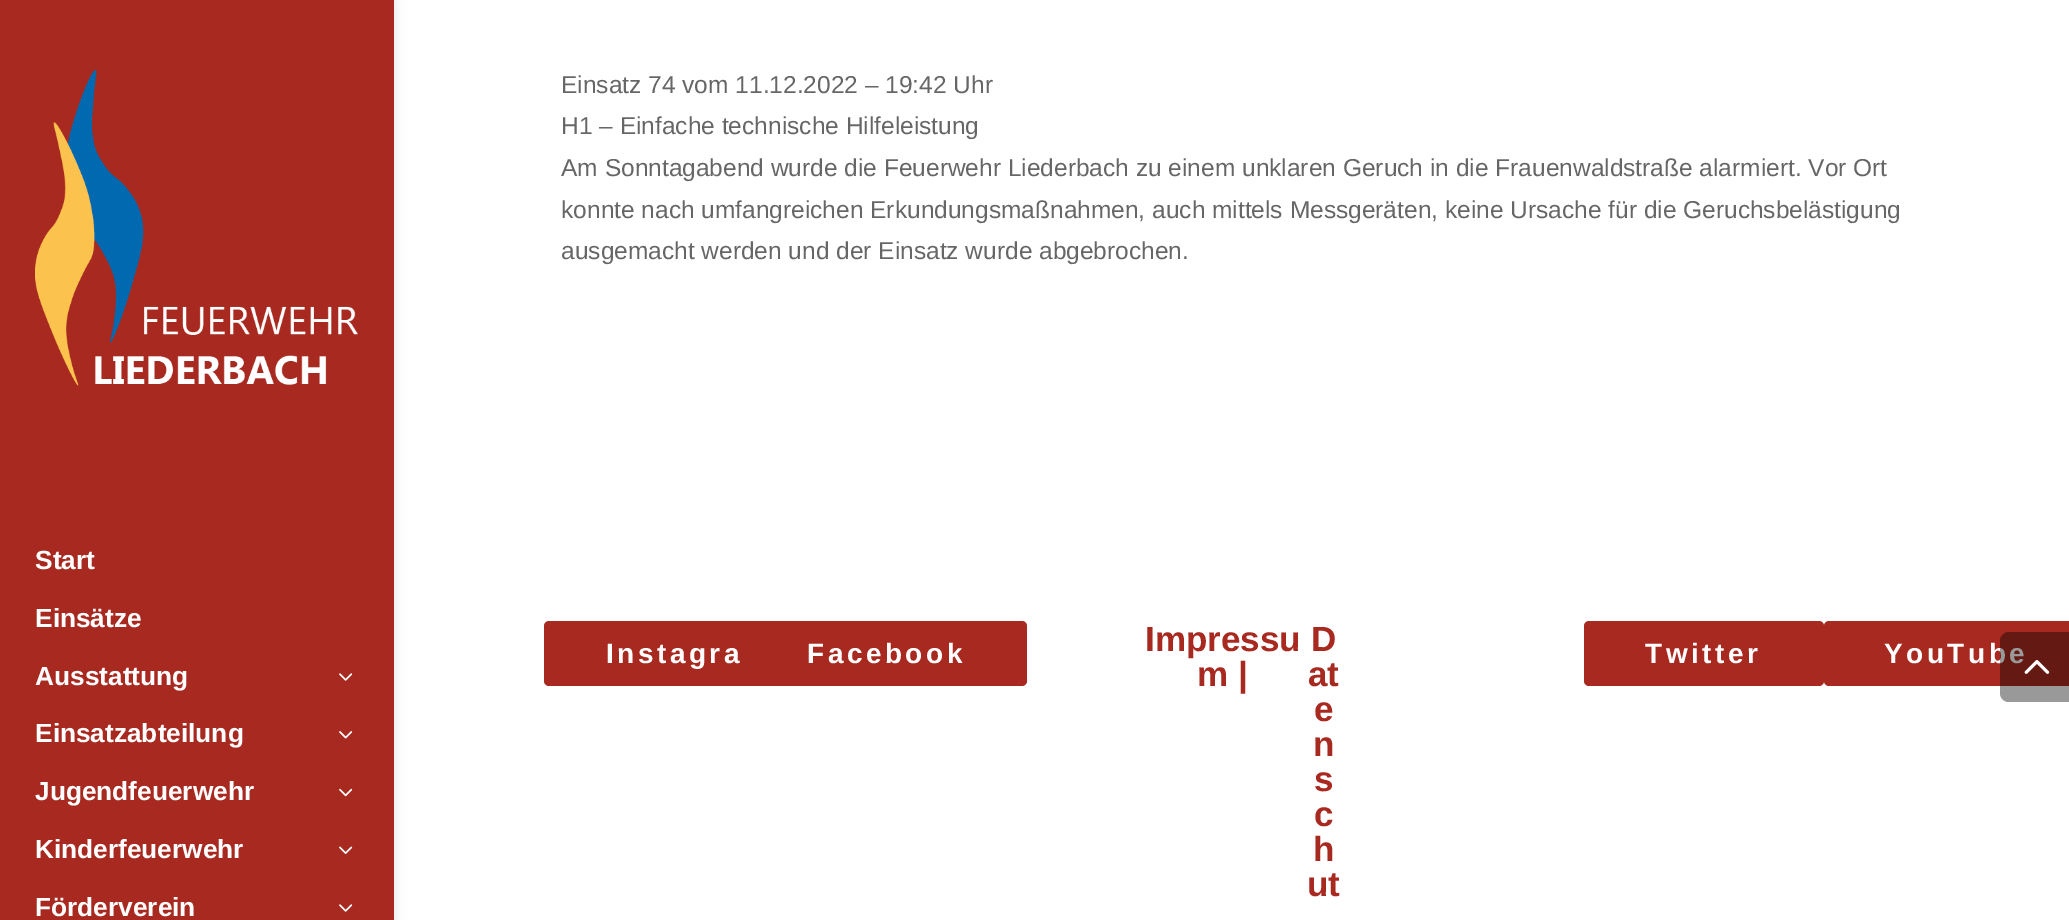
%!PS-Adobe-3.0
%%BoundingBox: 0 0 2069 920
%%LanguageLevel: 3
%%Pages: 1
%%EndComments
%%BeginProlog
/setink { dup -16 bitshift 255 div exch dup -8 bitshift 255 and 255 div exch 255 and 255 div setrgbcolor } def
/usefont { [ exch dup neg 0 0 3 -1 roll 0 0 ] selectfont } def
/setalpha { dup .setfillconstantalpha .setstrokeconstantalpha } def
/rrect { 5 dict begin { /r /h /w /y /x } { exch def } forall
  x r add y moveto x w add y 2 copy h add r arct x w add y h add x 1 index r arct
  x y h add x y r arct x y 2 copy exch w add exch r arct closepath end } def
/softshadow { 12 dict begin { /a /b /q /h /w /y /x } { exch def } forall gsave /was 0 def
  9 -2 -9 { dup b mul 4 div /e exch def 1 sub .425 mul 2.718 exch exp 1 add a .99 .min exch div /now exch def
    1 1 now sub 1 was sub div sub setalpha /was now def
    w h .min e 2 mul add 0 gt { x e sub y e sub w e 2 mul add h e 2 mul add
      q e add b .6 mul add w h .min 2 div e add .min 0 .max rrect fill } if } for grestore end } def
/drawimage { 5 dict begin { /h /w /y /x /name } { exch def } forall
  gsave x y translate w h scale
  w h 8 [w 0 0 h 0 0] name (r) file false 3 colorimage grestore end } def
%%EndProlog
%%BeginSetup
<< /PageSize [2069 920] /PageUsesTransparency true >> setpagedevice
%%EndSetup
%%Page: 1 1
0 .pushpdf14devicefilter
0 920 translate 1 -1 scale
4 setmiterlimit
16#FFFFFF setink
0 0 2069 920 rectfill
16#000000 setink
0 0 394 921 0 6 0.1 softshadow
16#A72920 setink
0 0 394 920 rectfill
(img1.raw) 35 70 323 316 drawimage
/LiberationSans-Bold 26.25 usefont
16#FFFFFF setink
[
    [(Start) 35 569]
    [(Einsätze) 35 627]
    [(Ausstattung) 35 685]
] { aload pop moveto show } forall
(img2.raw) 339 673 14 8 drawimage
35 742 moveto (Einsatzabteilung) show
(img3.raw) 339 731 14 8 drawimage
35 800 moveto (Jugendfeuerwehr) show
(img4.raw) 339 788 14 9 drawimage
35 858 moveto (Kinderfeuerwehr) show
(img5.raw) 339 846 14 8 drawimage
35 916 moveto (Förderverein) show
(img2.raw) 339 904 14 8 drawimage
/LiberationSans-Regular 24.5 usefont
16#666666 setink
[
    [(Einsatz 74 vom 11.12.2022 – 19:42 Uhr) 561 93]
    [(H1 – Einfache technische Hilfeleistung) 561 134]
    [(Am Sonntagabend wurde die Feuerwehr Liederbach zu einem unklaren Geruch in die Frauenwaldstraße alarmiert. Vor Ort) 561 176]
    [(konnte nach umfangreichen Erkundungsmaßnahmen, auch mittels Messgeräten, keine Ursache für die Geruchsbelästigung) 561 218]
    [(ausgemacht werden und der Einsatz wurde abgebrochen.) 561 259]
] { aload pop moveto show } forall
16#A72920 setink
544 621 289 65 5 rrect fill
/LiberationSans-Bold 28 usefont
16#FFFFFF setink
606 663 moveto 3.5 0 (Instagra) ashow
16#A72920 setink
746 621 281 65 5 rrect fill
16#FFFFFF setink
807 663 moveto 3.5 0 (Facebook) ashow
/LiberationSans-Bold 35 usefont
16#A72920 setink
[
    [(Impressu) 1145 651]
    [(m |) 1197 686]
    [(D) 1311 651]
    [(at) 1308 686]
    [(e) 1314 721]
    [(n) 1313 756]
    [(s) 1314 791]
    [(c) 1314 826]
    [(h) 1313 861]
    [(ut) 1307 896]
] { aload pop moveto show } forall
1584 621 240 65 5 rrect fill
/LiberationSans-Bold 28 usefont
16#FFFFFF setink
1645 663 moveto 3.5 0 (Twitter) ashow
16#A72920 setink
1824 621 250 65 5 rrect fill
16#FFFFFF setink
1884 663 moveto 3.5 0 (YouTube) ashow
0.4 setalpha
16#000000 setink
2009 632 moveto 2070 632 lineto 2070 702 lineto 2009 702 lineto 2004 702 2000 698 2000 693 curveto 2000 641 lineto 2000 636 2004 632 2009 632 curveto closepath fill
1 setalpha
(img6.raw) 2024 660 26 14 drawimage
.poppdf14devicefilter showpage
%%EOF
